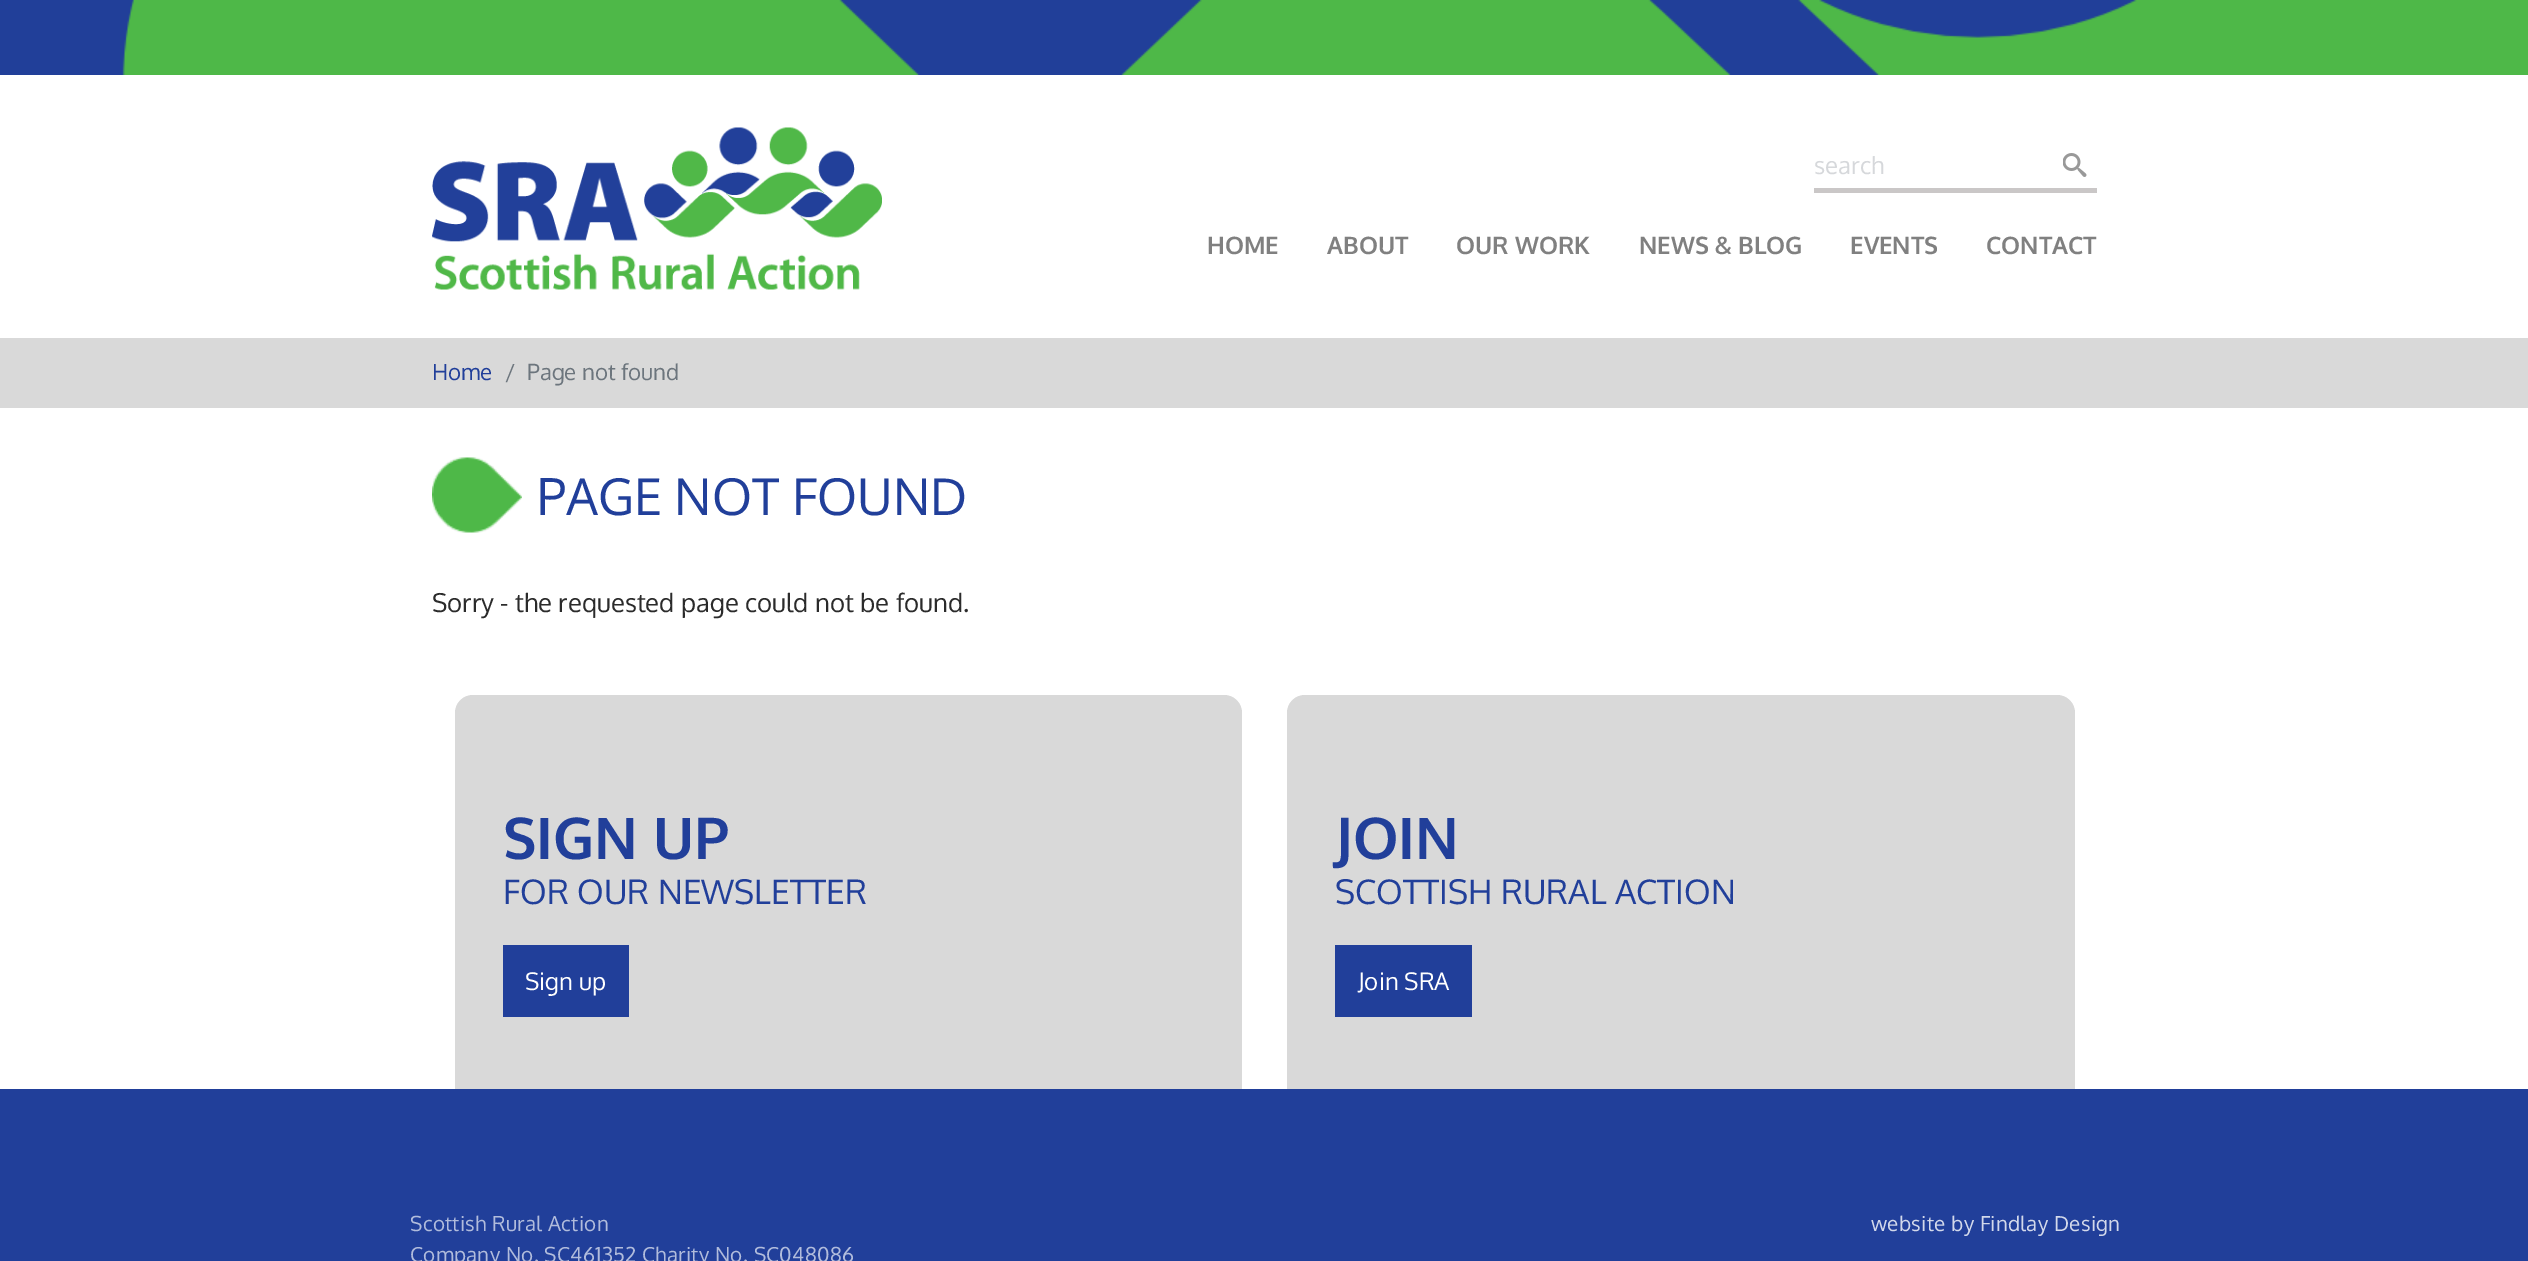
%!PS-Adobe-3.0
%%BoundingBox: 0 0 2528 1261
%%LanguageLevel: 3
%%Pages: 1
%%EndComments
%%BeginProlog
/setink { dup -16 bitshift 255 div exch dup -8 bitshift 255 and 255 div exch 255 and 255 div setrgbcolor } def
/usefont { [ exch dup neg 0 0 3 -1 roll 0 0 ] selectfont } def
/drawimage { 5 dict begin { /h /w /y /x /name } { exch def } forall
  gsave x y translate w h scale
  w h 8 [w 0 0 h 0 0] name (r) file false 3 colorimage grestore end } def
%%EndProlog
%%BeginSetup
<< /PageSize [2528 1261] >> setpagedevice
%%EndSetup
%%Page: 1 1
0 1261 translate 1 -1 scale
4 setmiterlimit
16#FFFFFF setink
0 0 2528 1261 rectfill
(img1.raw) 0 0 2528 75 drawimage
(img2.raw) 432 127 450 163 drawimage
16#CAC7C7 setink
1814 188 283 5 rectfill
/Oxygen-Regular 24 usefont
16#D6D8DB setink
1814 174 moveto (search) show
(img3.raw) 2063 153 24 24 drawimage
/Oxygen-Bold 24 usefont
16#808080 setink
[
    [(HOME) 1207 254]
    [(ABOUT) 1327 254]
    [(OUR WORK) 1456 254]
    [(NEWS & BLOG) 1639 254]
    [(EVENTS) 1850 254]
    [(CONTACT) 1986 254]
] { aload pop moveto show } forall
16#D9D9D9 setink
0 338 2528 70 rectfill
/Oxygen-Regular 22.25 usefont
16#213F9A setink
432 380 moveto (Home) show
16#6C757D setink
505 380 moveto (/) show
527 380 moveto (Page not found) show
(img4.raw) 432 457 90 76 drawimage
/Oxygen-Regular 50.5 usefont
16#213F9A setink
537 515 moveto (PAGE NOT FOUND) show
/Oxygen-Regular 25.7 usefont
16#2B2B2B setink
432 612 moveto (Sorry - the requested page could not be found.) show
16#D9D9D9 setink
473 695 moveto 1224 695 lineto 1234 695 1242 703 1242 713 curveto 1242 1089 lineto 455 1089 lineto 455 713 lineto 455 703 463 695 473 695 curveto closepath fill
/Oxygen-Bold 57.5 usefont
16#213F9A setink
503 859 moveto (SIGN UP) show
/Oxygen-Regular 33.6 usefont
503 904 moveto (FOR OUR NEWSLETTER) show
503 945 126 72 rectfill
/Oxygen-Regular 24 usefont
16#FFFFFF setink
525 990 moveto (Sign up) show
16#D9D9D9 setink
1305 695 moveto 2057 695 lineto 2067 695 2075 703 2075 713 curveto 2075 1089 lineto 1287 1089 lineto 1287 713 lineto 1287 703 1295 695 1305 695 curveto closepath fill
/Oxygen-Bold 57.5 usefont
16#213F9A setink
1335 859 moveto (JOIN) show
/Oxygen-Regular 33.6 usefont
1335 904 moveto (SCOTTISH RURAL ACTION) show
1335 945 137 72 rectfill
/Oxygen-Regular 24 usefont
16#FFFFFF setink
1358 990 moveto (Join SRA) show
16#213F9A setink
0 1089 2528 172 rectfill
/Oxygen-Regular 20.6 usefont
16#B1BCDC setink
410 1231 moveto 0.3 0 (Scottish Rural Action) ashow
410 1262 moveto 0.3 0 (Company No. SC461352 Charity No. SC048086) ashow
16#D3D9EB setink
1871 1231 moveto 0.3 0 (website by Findlay Design) ashow
showpage
%%EOF
